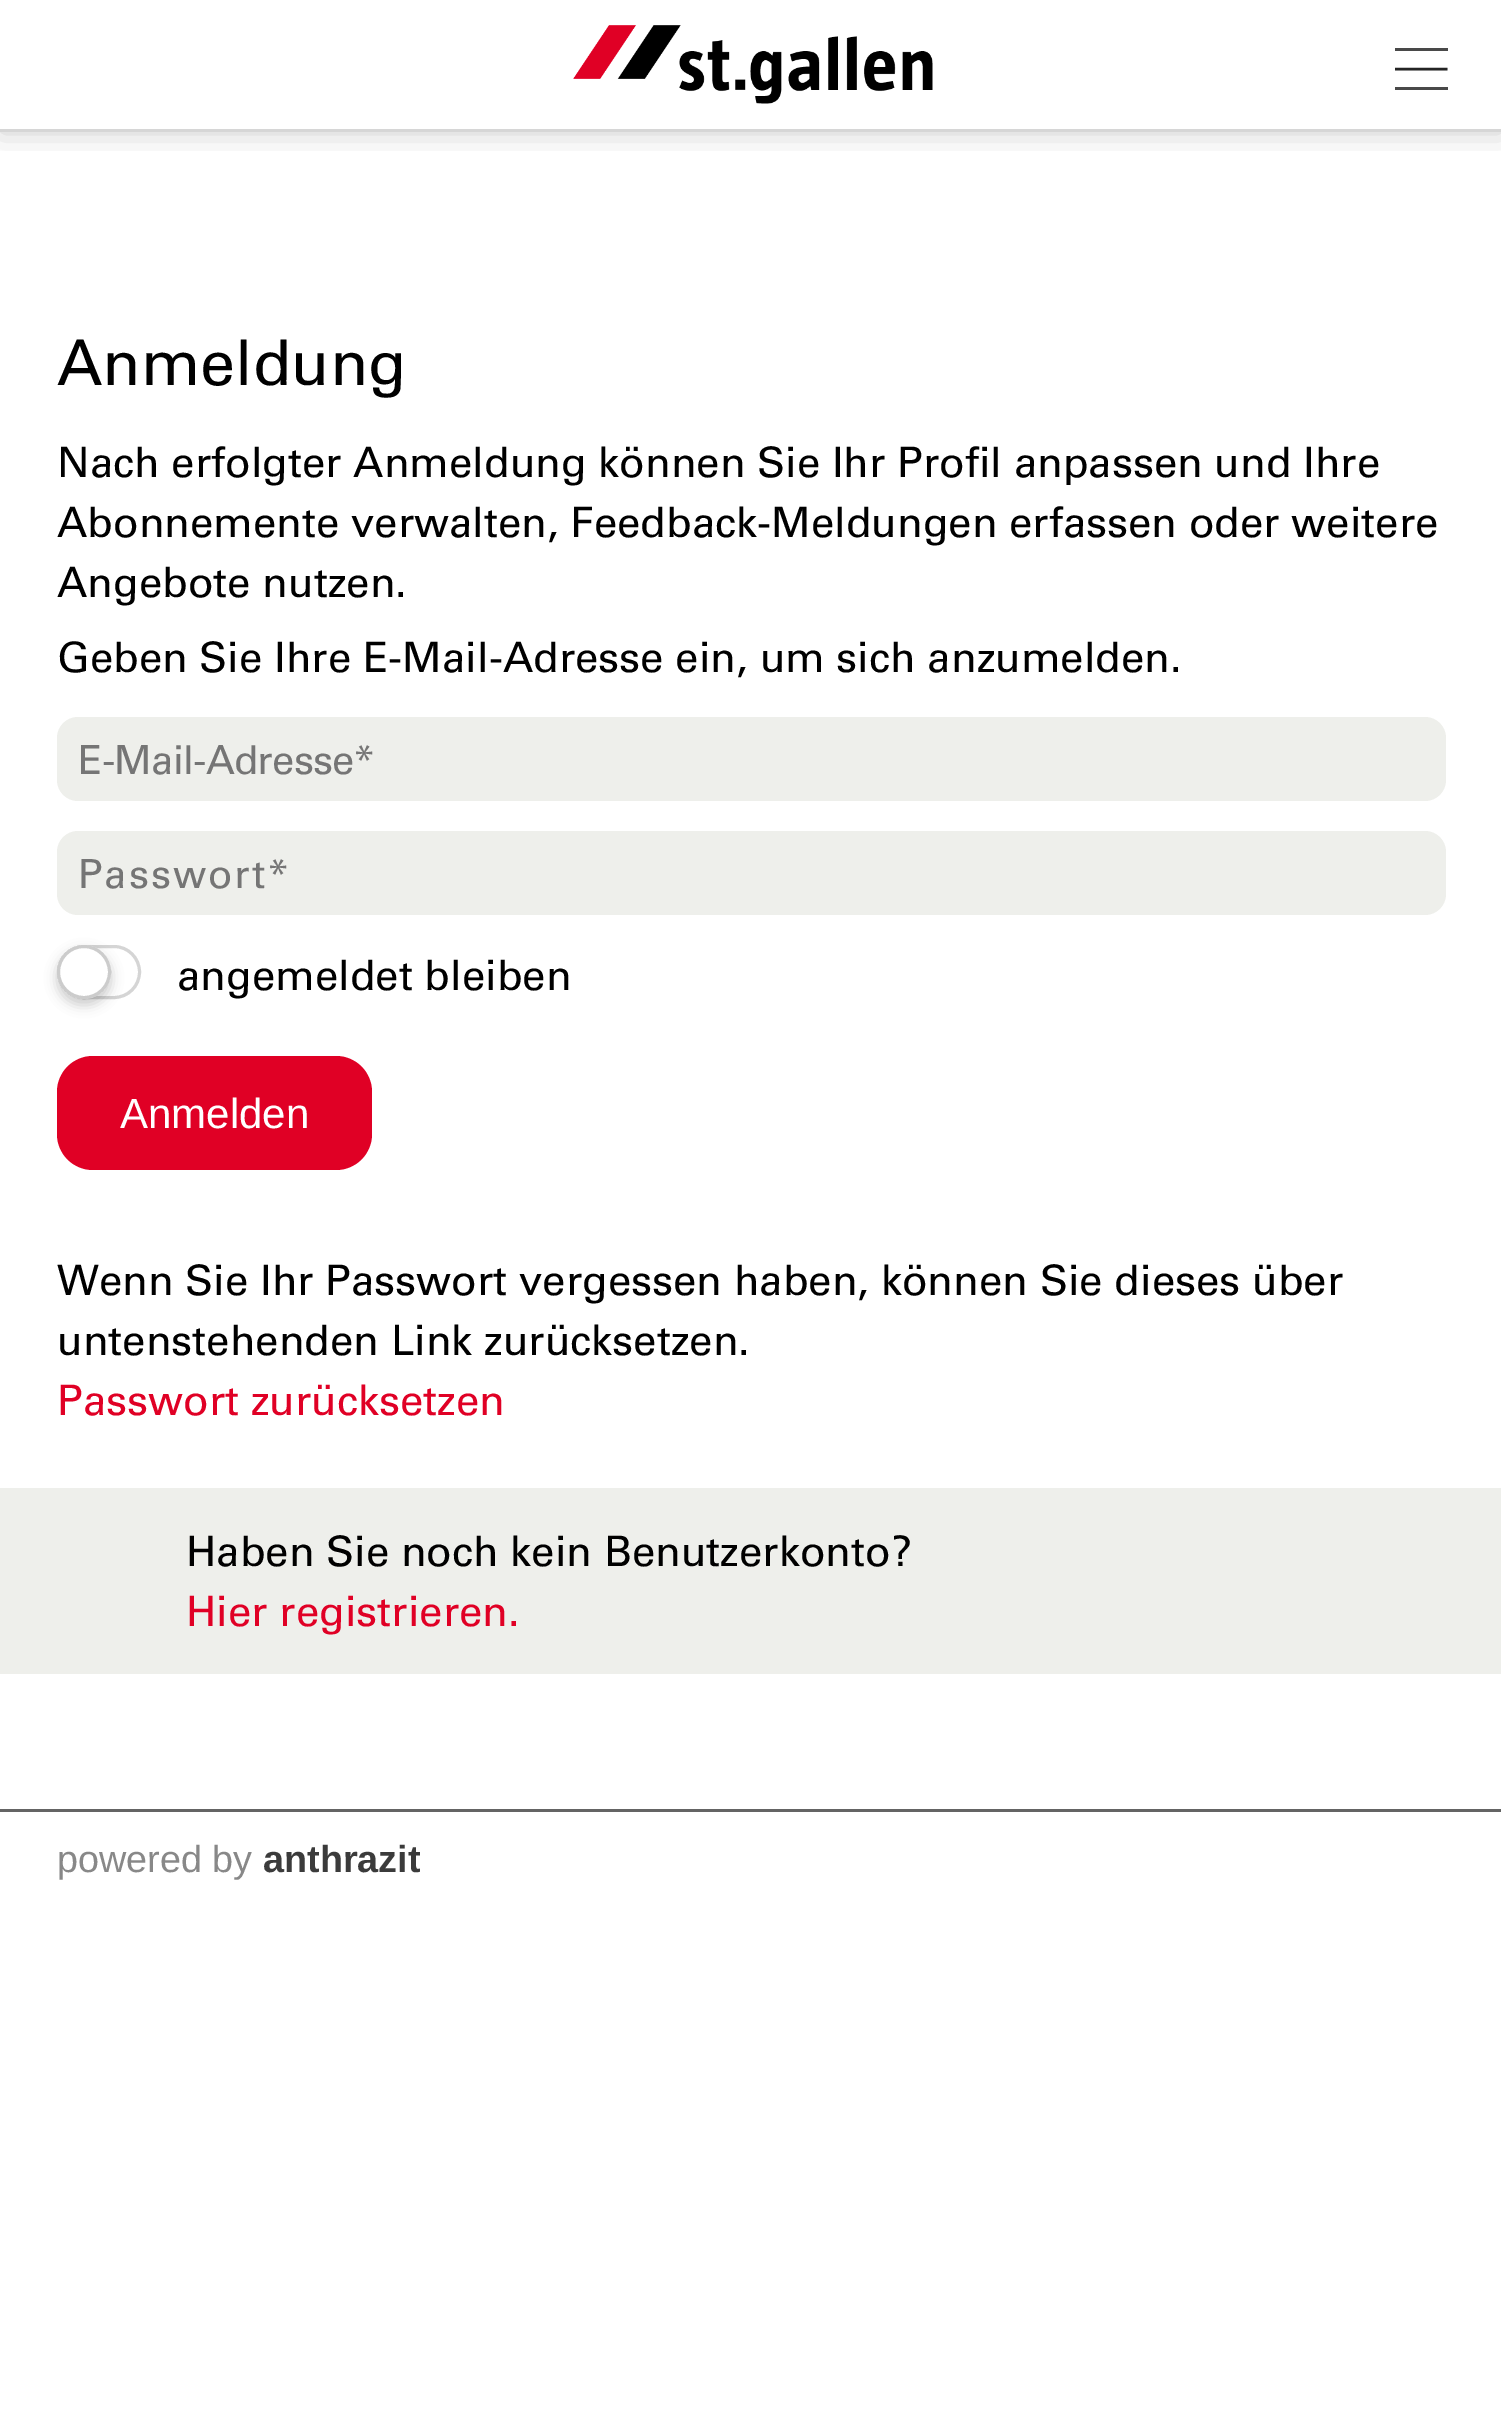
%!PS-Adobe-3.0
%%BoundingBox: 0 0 1501 2430
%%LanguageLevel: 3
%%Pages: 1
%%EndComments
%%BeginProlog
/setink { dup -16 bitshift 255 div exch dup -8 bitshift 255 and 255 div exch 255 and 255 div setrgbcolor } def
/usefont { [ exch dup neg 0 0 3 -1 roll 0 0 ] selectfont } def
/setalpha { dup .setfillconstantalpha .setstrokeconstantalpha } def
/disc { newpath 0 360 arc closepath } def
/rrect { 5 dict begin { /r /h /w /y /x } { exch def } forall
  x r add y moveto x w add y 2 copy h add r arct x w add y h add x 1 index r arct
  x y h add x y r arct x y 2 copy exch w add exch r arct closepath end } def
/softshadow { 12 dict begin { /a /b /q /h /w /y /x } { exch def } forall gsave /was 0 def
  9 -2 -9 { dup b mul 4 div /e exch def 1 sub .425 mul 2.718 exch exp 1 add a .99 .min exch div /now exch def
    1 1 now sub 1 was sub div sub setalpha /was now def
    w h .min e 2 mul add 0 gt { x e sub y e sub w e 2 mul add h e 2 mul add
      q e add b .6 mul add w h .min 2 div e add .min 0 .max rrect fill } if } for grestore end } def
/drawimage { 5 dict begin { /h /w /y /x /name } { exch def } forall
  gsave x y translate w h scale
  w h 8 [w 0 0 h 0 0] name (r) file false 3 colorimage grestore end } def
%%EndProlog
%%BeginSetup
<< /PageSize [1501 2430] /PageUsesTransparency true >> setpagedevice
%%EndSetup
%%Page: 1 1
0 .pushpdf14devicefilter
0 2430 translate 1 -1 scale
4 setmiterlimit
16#FFFFFF setink
0 0 1501 2430 rectfill
gsave
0 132 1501 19 rectclip
16#000000 setink
0 0 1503 132 0 15 0.2 softshadow
grestore
16#D6D6D6 setink
0 129 1501 3 rectfill
(img1.raw) 573 25 360 79 drawimage
16#494949 setink
1395 48 53 3 rectfill
16#242424 setink
2.5 setlinewidth
1 setlinejoin
1395 69 moveto 1447.5 69 lineto stroke
16#494949 setink
1395 87 53 3 rectfill
/Univers-Regular 63 usefont
16#000000 setink
57 385 moveto (Anmeldung) show
/Univers-Regular 42 usefont
[
    [(Nach erfolgter Anmeldung können Sie Ihr Profil anpassen und Ihre) 57 477]
    [(Abonnemente verwalten, Feedback-Meldungen erfassen oder weitere) 57 537]
    [(Angebote nutzen.) 57 597]
    [(Geben Sie Ihre E-Mail-Adresse ein, um sich anzumelden.) 57 672]
] { aload pop moveto show } forall
16#EEEFEB setink
57 717 1389 84 21 rrect fill
/Univers-Regular 40 usefont
16#757575 setink
78 774 moveto -0.8 0 (E-Mail-Adresse*) ashow
16#EEEFEB setink
57 831 1389 84 21 rrect fill
16#757575 setink
78 888 moveto 2 0 (Passwort*) ashow
16#D5D5D5 setink
3 setlinewidth
0 setlinejoin
58.5 946.5 81 51 25.5 rrect stroke
16#000000 setink
57 951 54 54 27 6 0.2 softshadow
16#FFFFFF setink
84 972 27 disc fill
0.2 setalpha
16#000000 setink
84 972 25.5 disc stroke
/Univers-Regular 42 usefont
1 setalpha
177 990 moveto (angemeldet bleiben) show
16#E00025 setink
57 1056 315 114 36 rrect fill
/LiberationSans-Regular 42 usefont
16#FFFFFF setink
120 1128 moveto (Anmelden) show
/Univers-Regular 42 usefont
16#000000 setink
57 1295 moveto (Wenn Sie Ihr Passwort vergessen haben, können Sie dieses über) show
57 1355 moveto (untenstehenden Link zurücksetzen.) show
16#E00025 setink
57 1415 moveto (Passwort zurücksetzen) show
16#EEEFEB setink
0 1488 1501 186 rectfill
16#000000 setink
186 1566 moveto (Haben Sie noch kein Benutzerkonto?) show
16#E00025 setink
186 1626 moveto (Hier registrieren.) show
16#646464 setink
0 1809 1501 3 rectfill
/LiberationSans-Regular 37.75 usefont
16#888888 setink
57 1872 moveto (powered by) show
/LiberationSans-Bold 37.75 usefont
16#3B3B3B setink
263 1872 moveto (anthrazit) show
.poppdf14devicefilter showpage
%%EOF
